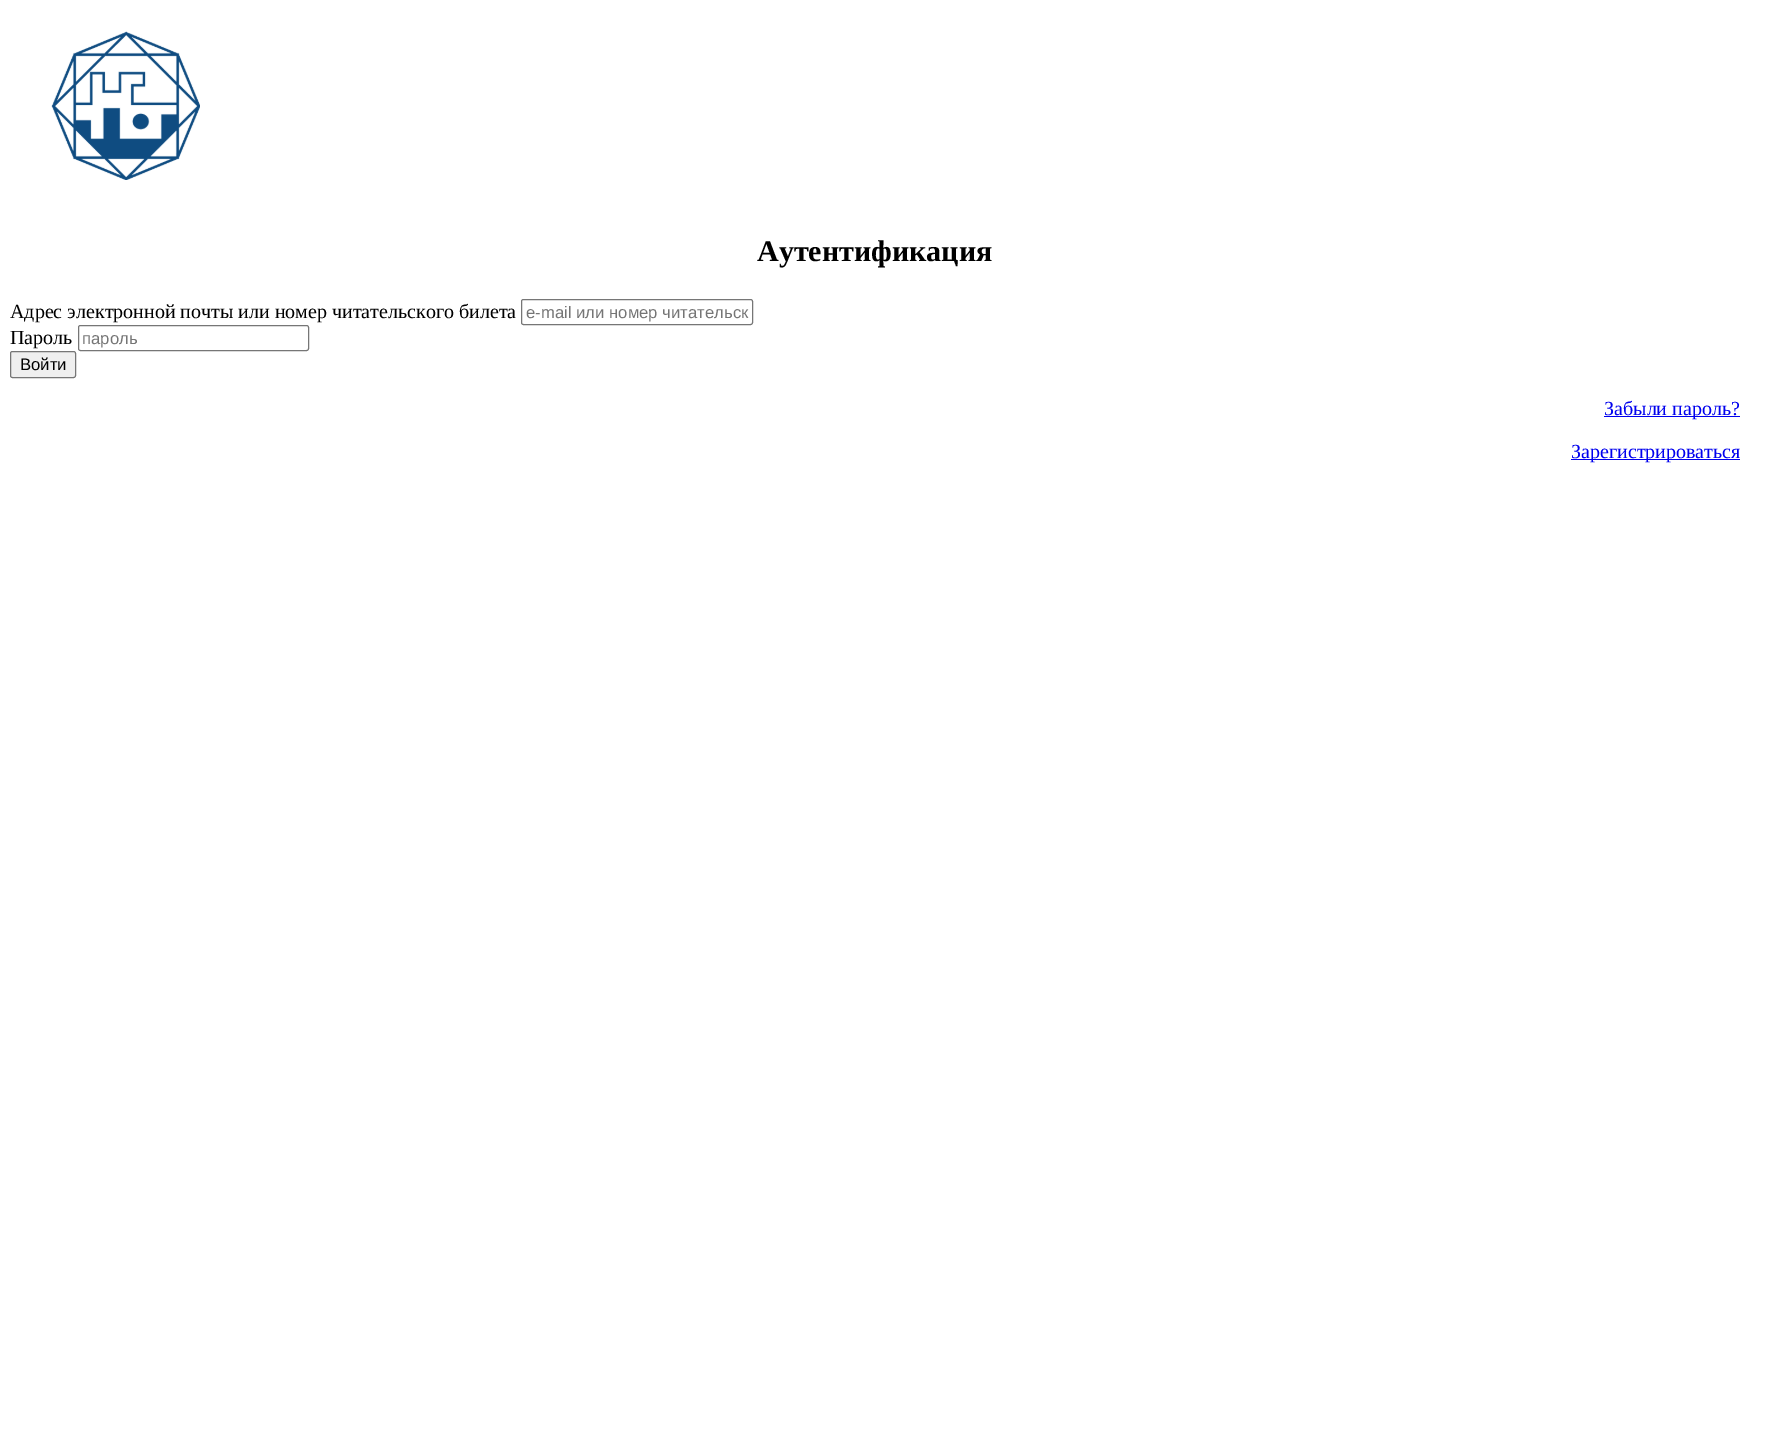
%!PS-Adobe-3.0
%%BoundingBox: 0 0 1789 1436
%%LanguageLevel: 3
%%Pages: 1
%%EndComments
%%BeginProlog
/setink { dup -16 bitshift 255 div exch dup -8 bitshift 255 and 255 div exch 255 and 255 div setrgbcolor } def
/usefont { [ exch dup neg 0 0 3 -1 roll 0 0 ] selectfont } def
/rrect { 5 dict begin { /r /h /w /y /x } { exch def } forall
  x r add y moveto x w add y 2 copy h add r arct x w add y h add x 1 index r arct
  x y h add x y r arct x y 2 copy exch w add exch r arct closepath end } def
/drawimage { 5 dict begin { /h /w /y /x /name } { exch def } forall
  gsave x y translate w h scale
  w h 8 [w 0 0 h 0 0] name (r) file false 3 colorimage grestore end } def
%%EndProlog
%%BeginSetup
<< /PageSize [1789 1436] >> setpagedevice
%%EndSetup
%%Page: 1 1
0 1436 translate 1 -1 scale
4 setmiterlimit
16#FFFFFF setink
0 0 1789 1436 rectfill
(img1.raw) 51 31 149 149 drawimage
/LiberationSerif-Bold 30 usefont
16#000000 setink
757 261 moveto (Аутентификация) show
/LiberationSerif-Regular 20 usefont
10 318 moveto (Адрес электронной почты или номер читательского билета) show
16#767676 setink
521.5 299.5 231 25 2 rrect stroke
/LiberationSans-Regular 16.7 usefont
16#757575 setink
526 318 moveto (e-mail или номер читательск) show
/LiberationSerif-Regular 20 usefont
16#000000 setink
10 344 moveto (Пароль) show
16#767676 setink
78.5 325.5 230 25 2 rrect stroke
/LiberationSans-Regular 16.7 usefont
16#757575 setink
82 344 moveto (пароль) show
16#EFEFEF setink
10.5 351.5 65 26 2 rrect gsave fill grestore
16#767676 setink
stroke
16#000000 setink
20 370 moveto (Войти) show
16#0000EE setink
1604 416 136 1 rectfill
/LiberationSerif-Regular 20 usefont
1604 415 moveto (Забыли пароль?) show
1571 459 169 1 rectfill
1571 458 moveto (Зарегистрироваться) show
showpage
%%EOF
